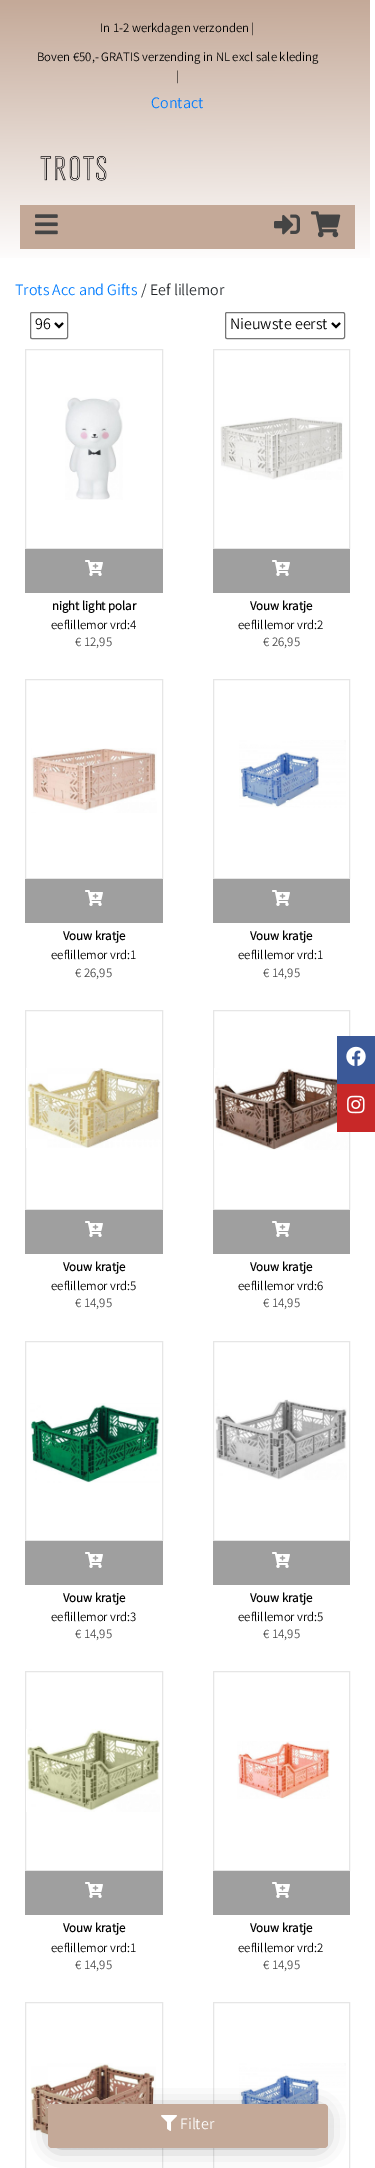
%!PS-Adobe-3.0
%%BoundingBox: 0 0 375 2168
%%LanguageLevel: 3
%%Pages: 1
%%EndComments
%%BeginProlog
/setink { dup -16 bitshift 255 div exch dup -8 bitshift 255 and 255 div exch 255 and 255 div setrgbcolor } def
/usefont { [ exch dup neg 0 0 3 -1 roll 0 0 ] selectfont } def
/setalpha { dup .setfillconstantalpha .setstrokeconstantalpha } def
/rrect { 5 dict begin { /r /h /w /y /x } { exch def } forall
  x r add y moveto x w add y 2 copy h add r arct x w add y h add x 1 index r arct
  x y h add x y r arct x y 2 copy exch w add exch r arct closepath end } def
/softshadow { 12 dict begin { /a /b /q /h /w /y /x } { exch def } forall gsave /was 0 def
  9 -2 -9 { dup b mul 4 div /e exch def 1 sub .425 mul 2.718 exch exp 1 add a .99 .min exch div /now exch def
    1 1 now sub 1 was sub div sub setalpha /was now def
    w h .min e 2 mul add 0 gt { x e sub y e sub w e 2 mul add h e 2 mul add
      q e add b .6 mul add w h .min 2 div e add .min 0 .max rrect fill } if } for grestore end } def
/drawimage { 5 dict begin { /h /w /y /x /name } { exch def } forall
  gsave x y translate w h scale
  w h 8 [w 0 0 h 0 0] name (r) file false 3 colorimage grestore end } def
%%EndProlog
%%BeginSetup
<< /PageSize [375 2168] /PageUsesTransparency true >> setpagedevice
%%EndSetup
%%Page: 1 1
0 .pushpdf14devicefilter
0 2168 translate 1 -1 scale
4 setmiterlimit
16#FFFFFF setink
0 0 375 2168 rectfill
gsave 0 0 moveto 370 0 lineto 370 258 lineto 0 258 lineto closepath clip newpath
<< /ShadingType 2 /ColorSpace /DeviceRGB /Coords [187 0 188 264] /Extend [true true] /Function << /FunctionType 2 /Domain [0 1] /C0 [0.769 0.663 0.596] /C1 [1 1 1] /N 1 >> >> shfill grestore
/Varta-Light 12.8 usefont
16#000000 setink
[
    [(In 1-2 werkdagen verzonden |) 100 32]
    [(Boven €50,- GRATIS verzending in NL excl sale kleding) 37 61]
    [(|) 176 80]
] { aload pop moveto show } forall
/Varta-Light 16 usefont
16#007BFF setink
151 108 moveto (Contact) show
(img1.raw) 40 155 67 26 drawimage
16#C4A998 setink
20 205 335 44 rectfill
(img2.raw) 35 214 23 21 drawimage
(img3.raw) 274 214 26 21 drawimage
(img4.raw) 311 211 30 27 drawimage
16#007BFF setink
15 295 moveto (Trots Acc and Gifts) show
16#212529 setink
141 295 moveto (/ Eef lillemor) show
16#767676 setink
30.5 312.5 37 26 1.5 rrect stroke
16#000000 setink
2 setlinewidth
55 323 moveto 59 327 lineto 63 323 lineto stroke
35 329 moveto (96) show
16#767676 setink
1 setlinewidth
225.5 312.5 119 26 1.5 rrect stroke
16#000000 setink
2 setlinewidth
332 323 moveto 336 327 lineto 340 323 lineto stroke
230 329 moveto (Nieuwste eerst) show
16#E6E6E6 setink
1 setlinewidth
25.5 349.5 137 199 rectstroke
(img5.raw) 65 397 58 103 drawimage
16#9F9F9F setink
25 549 138 44 rectfill
(img6.raw) 85 560 18 16 drawimage
/Varta-Bold 12.8 usefont
16#000000 setink
52 610 moveto (night light polar) show
/Varta-Light 12.8 usefont
51 629 moveto (eeflillemor vrd:4) show
16#444444 setink
75 646 moveto (€ 12,95) show
16#E6E6E6 setink
213.5 349.5 136 199 rectstroke
(img7.raw) 220 417 123 63 drawimage
16#9F9F9F setink
213 549 137 44 rectfill
(img6.raw) 272 560 18 16 drawimage
/Varta-Bold 12.8 usefont
16#000000 setink
250 610 moveto (Vouw kratje) show
/Varta-Light 12.8 usefont
238 629 moveto (eeflillemor vrd:2) show
16#444444 setink
263 646 moveto (€ 26,95) show
16#E6E6E6 setink
25.5 679.5 137 199 rectstroke
(img8.raw) 31 748 126 65 drawimage
16#9F9F9F setink
25 879 138 44 rectfill
(img6.raw) 85 890 18 16 drawimage
/Varta-Bold 12.8 usefont
16#000000 setink
63 940 moveto (Vouw kratje) show
/Varta-Light 12.8 usefont
51 959 moveto (eeflillemor vrd:1) show
16#444444 setink
75 977 moveto (€ 26,95) show
16#E6E6E6 setink
213.5 679.5 136 199 rectstroke
(img9.raw) 239 740 107 68 drawimage
16#9F9F9F setink
213 879 137 44 rectfill
(img6.raw) 272 890 18 16 drawimage
/Varta-Bold 12.8 usefont
16#000000 setink
250 940 moveto (Vouw kratje) show
/Varta-Light 12.8 usefont
238 959 moveto (eeflillemor vrd:1) show
16#444444 setink
263 977 moveto (€ 14,95) show
16#E6E6E6 setink
25.5 1010.5 137 199 rectstroke
(img10.raw) 26 1068 135 80 drawimage
16#9F9F9F setink
25 1210 138 44 rectfill
(img6.raw) 85 1221 18 16 drawimage
/Varta-Bold 12.8 usefont
16#000000 setink
63 1271 moveto (Vouw kratje) show
/Varta-Light 12.8 usefont
51 1290 moveto (eeflillemor vrd:5) show
16#444444 setink
75 1307 moveto (€ 14,95) show
16#E6E6E6 setink
213.5 1010.5 136 199 rectstroke
(img11.raw) 214 1068 135 82 drawimage
16#9F9F9F setink
213 1210 137 44 rectfill
(img6.raw) 272 1221 18 16 drawimage
/Varta-Bold 12.8 usefont
16#000000 setink
250 1271 moveto (Vouw kratje) show
/Varta-Light 12.8 usefont
238 1290 moveto (eeflillemor vrd:6) show
16#444444 setink
263 1307 moveto (€ 14,95) show
16#E6E6E6 setink
25.5 1341.5 137 199 rectstroke
(img12.raw) 30 1403 130 80 drawimage
16#9F9F9F setink
25 1541 138 44 rectfill
(img6.raw) 85 1552 18 16 drawimage
/Varta-Bold 12.8 usefont
16#000000 setink
63 1602 moveto (Vouw kratje) show
/Varta-Light 12.8 usefont
51 1621 moveto (eeflillemor vrd:3) show
16#444444 setink
75 1638 moveto (€ 14,95) show
16#E6E6E6 setink
213.5 1341.5 136 199 rectstroke
(img13.raw) 215 1399 132 81 drawimage
16#9F9F9F setink
213 1541 137 44 rectfill
(img6.raw) 272 1552 18 16 drawimage
/Varta-Bold 12.8 usefont
16#000000 setink
250 1602 moveto (Vouw kratje) show
/Varta-Light 12.8 usefont
238 1621 moveto (eeflillemor vrd:5) show
16#444444 setink
263 1638 moveto (€ 14,95) show
16#E6E6E6 setink
25.5 1671.5 137 199 rectstroke
(img14.raw) 26 1729 134 83 drawimage
16#9F9F9F setink
25 1871 138 44 rectfill
(img6.raw) 85 1882 18 16 drawimage
/Varta-Bold 12.8 usefont
16#000000 setink
63 1932 moveto (Vouw kratje) show
/Varta-Light 12.8 usefont
51 1952 moveto (eeflillemor vrd:1) show
16#444444 setink
75 1969 moveto (€ 14,95) show
16#E6E6E6 setink
213.5 1671.5 136 199 rectstroke
(img15.raw) 237 1741 93 58 drawimage
16#9F9F9F setink
213 1871 137 44 rectfill
(img6.raw) 272 1882 18 16 drawimage
/Varta-Bold 12.8 usefont
16#000000 setink
250 1932 moveto (Vouw kratje) show
/Varta-Light 12.8 usefont
238 1952 moveto (eeflillemor vrd:2) show
16#444444 setink
263 1969 moveto (€ 14,95) show
16#E6E6E6 setink
25.5 2002.5 137 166 rectstroke
(img16.raw) 30 2063 126 86 drawimage
213.5 2002.5 136 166 rectstroke
(img17.raw) 239 2063 107 67 drawimage
16#000000 setink
57 2115 262 26 0 12 0.6 softshadow
16#C4A998 setink
48 2104 280 44 4 rrect fill
(img18.raw) 161 2115 16 16 drawimage
/Varta-Light 16 usefont
16#FFFFFF setink
180 2129 moveto (Filter) show
16#3B5998 setink
337 1036 38 48 rectfill
(img19.raw) 346 1046 20 20 drawimage
16#C82828 setink
337 1084 38 48 rectfill
(img20.raw) 347 1095 18 19 drawimage
.poppdf14devicefilter showpage
%%EOF
